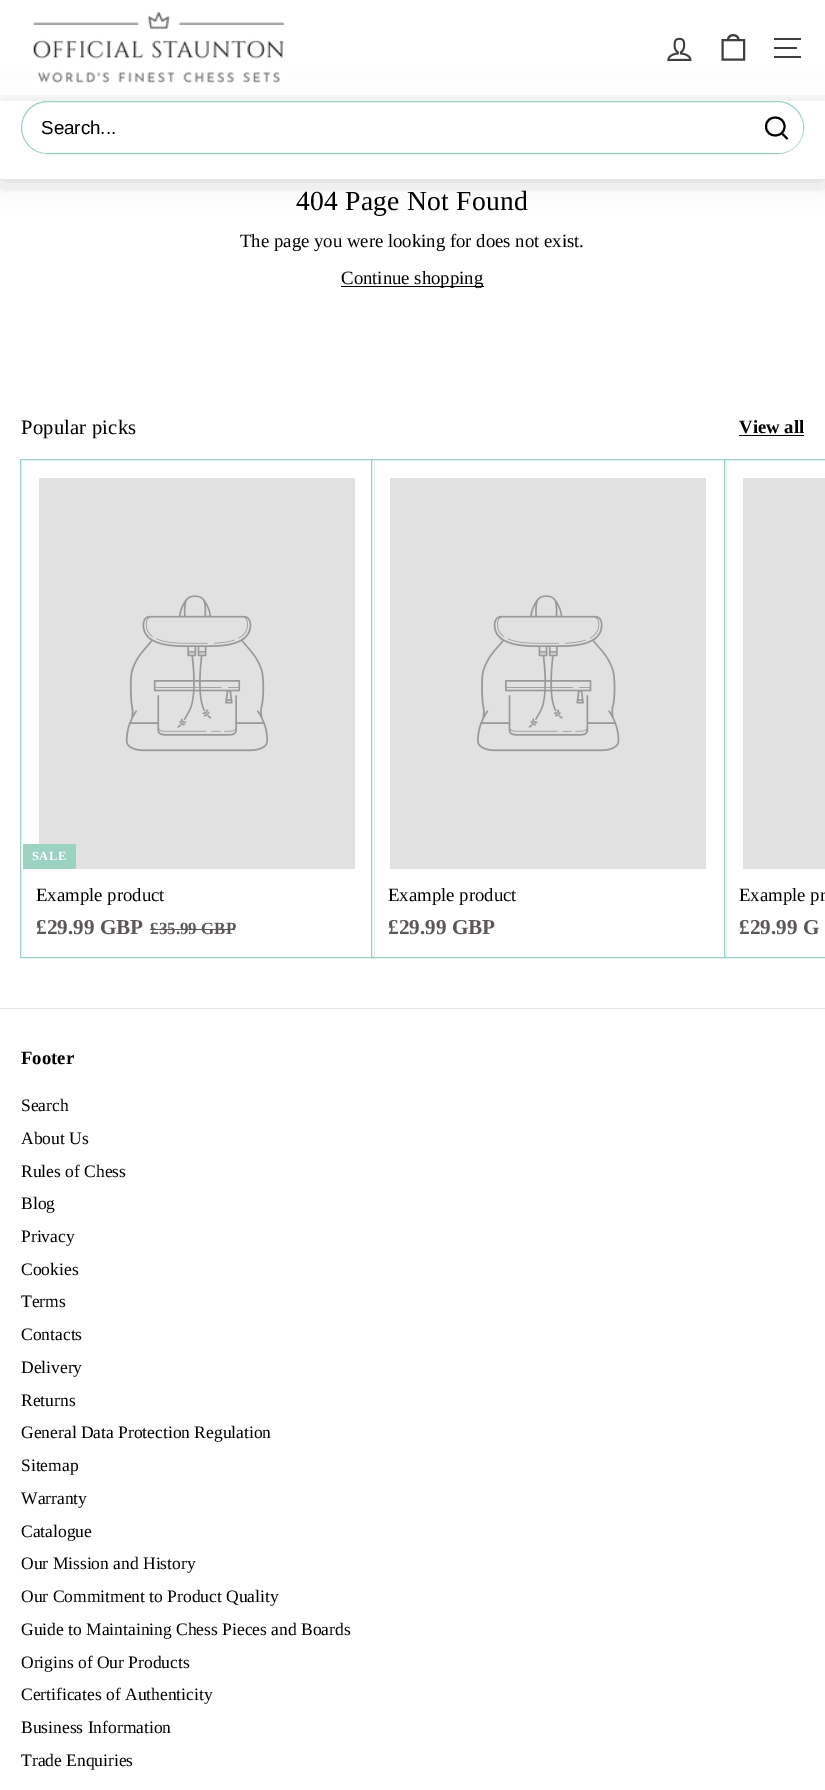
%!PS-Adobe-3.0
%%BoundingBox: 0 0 825 1790
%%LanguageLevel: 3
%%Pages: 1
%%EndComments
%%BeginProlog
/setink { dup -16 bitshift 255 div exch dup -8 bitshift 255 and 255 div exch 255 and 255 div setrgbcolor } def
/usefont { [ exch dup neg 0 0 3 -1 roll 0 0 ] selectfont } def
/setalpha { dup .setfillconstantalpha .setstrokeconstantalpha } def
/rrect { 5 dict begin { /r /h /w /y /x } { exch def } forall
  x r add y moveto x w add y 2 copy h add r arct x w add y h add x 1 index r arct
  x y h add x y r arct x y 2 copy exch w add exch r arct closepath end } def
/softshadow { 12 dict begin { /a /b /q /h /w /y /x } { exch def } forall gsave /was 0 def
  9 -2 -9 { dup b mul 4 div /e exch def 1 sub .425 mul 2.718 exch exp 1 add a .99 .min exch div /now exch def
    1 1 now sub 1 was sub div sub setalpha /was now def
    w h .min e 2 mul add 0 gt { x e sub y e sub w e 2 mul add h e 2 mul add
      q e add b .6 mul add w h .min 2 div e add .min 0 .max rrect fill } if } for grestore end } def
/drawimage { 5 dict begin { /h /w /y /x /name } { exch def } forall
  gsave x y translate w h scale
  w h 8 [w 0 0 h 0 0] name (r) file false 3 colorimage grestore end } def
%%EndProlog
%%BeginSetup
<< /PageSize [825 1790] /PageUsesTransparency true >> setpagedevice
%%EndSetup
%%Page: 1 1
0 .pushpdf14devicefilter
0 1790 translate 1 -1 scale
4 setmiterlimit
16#FFFFFF setink
0 0 825 1790 rectfill
gsave
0 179 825 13 rectclip
16#000000 setink
0 0 825 179 0 15.5 0.1 softshadow
grestore
16#000000 setink
0 101 825 78 0 15.5 0.1 softshadow
16#FFFFFF setink
0 81 825 14 rectfill
(img1.raw) 33 12 251 71 drawimage
(img2.raw) 667 37 25 24 drawimage
16#413E3E setink
2.1 setlinewidth
728 40 moveto 728 33.5 738.5 33.5 738.5 40 curveto 722.5 40 moveto 744 40 lineto 744 59.5 lineto 722.5 59.5 lineto closepath stroke
[
    [774 38 27 2 16#413E3E]
    [774 47 23 2 16#413E3E]
    [774 56 27 2 16#413E3E]
    [0 101 825 78 16#FFFFFF]
] { aload pop setink rectfill } forall
16#9BD2C2 setink
1 setlinewidth
21.5 101.5 782 52 26 rrect stroke
16#FFFFFF setink
23 103 780 50 25 rrect fill
/LiberationSans-Regular 18.75 usefont
16#000000 setink
41 134 moveto (Search...) show
2 setlinewidth
784.5 126.5 moveto 784.5 138.5 766 138.5 766 126.5 curveto 766 114.5 784.5 114.5 784.5 126.5 curveto closepath 787.5 139 moveto 781.5 133 lineto stroke
/LiberationSerif-Regular 27.6 usefont
296 210 moveto 0.25 0 (404 Page Not Found) ashow
/LiberationSerif-Regular 18.75 usefont
240 247 moveto (The page you were looking for does not exist.) show
341 286 143 1 rectfill
341 284 moveto (Continue shopping) show
/LiberationSerif-Regular 20.5 usefont
21 434 moveto 0.25 0 (Popular picks) ashow
/LiberationSerif-Bold 18.75 usefont
739 433 moveto (View all) show
739 435 65 1 rectfill
16#E1E1E1 setink
39 478 316 391 rectfill
(img3.raw) 125 595 143 157 drawimage
16#5C5858 setink
150 929 85 1 rectfill
16#9BD2C2 setink
1 setlinewidth
20.5 459.5 353 498 rectstroke
23 844 moveto 73.5 844 lineto 75 844 76 845 76 846.5 curveto 76 866.5 lineto 76 868 75 869 73.5 869 curveto 23 869 lineto closepath fill
/LiberationSerif-Bold 12.5 usefont
16#FFFFFF setink
32 860 moveto 0.5 0 (SALE) ashow
/LiberationSerif-Regular 18.75 usefont
16#000000 setink
36 901 moveto (Example product) show
/LiberationSerif-Bold 21.25 usefont
16#5C5858 setink
36 934 moveto (£29.99 GBP) show
/LiberationSerif-Bold 17 usefont
150 934 moveto (£35.99 GBP) show
16#FFFFFF setink
373 460 1 496 rectfill
16#E1E1E1 setink
390 478 316 391 rectfill
(img4.raw) 477 595 143 157 drawimage
16#9BD2C2 setink
371.5 459.5 354 498 rectstroke
/LiberationSerif-Regular 18.75 usefont
16#000000 setink
388 901 moveto (Example product) show
/LiberationSerif-Bold 21.25 usefont
16#5C5858 setink
388 934 moveto (£29.99 GBP) show
16#FFFFFF setink
725 460 1 496 rectfill
16#E1E1E1 setink
743 478 82 391 rectfill
16#9BD2C2 setink
724.5 459.5 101 498 rectstroke
/LiberationSerif-Regular 18.75 usefont
16#000000 setink
739 901 moveto (Example pr) show
/LiberationSerif-Bold 21.25 usefont
16#5C5858 setink
739 934 moveto (£29.99 G) show
16#E8E8E1 setink
0 1008 825 1 rectfill
/LiberationSerif-Bold 18.75 usefont
16#000000 setink
21 1064 moveto (Footer) show
/LiberationSerif-Regular 17.5 usefont
[
    [(Search) 21 1111]
    [(About Us) 21 1144]
    [(Rules of Chess) 21 1177]
    [(Blog) 21 1209]
    [(Privacy) 21 1242]
    [(Cookies) 21 1275]
    [(Terms) 21 1307]
    [(Contacts) 21 1340]
    [(Delivery) 21 1373]
    [(Returns) 21 1406]
    [(General Data Protection Regulation) 21 1438]
    [(Sitemap) 21 1471]
    [(Warranty) 21 1504]
    [(Catalogue) 21 1537]
    [(Our Mission and History) 21 1569]
    [(Our Commitment to Product Quality) 21 1602]
    [(Guide to Maintaining Chess Pieces and Boards) 21 1635]
    [(Origins of Our Products) 21 1668]
    [(Certificates of Authenticity) 21 1700]
    [(Business Information) 21 1733]
    [(Trade Enquiries) 21 1766]
] { aload pop moveto show } forall
.poppdf14devicefilter showpage
%%EOF
